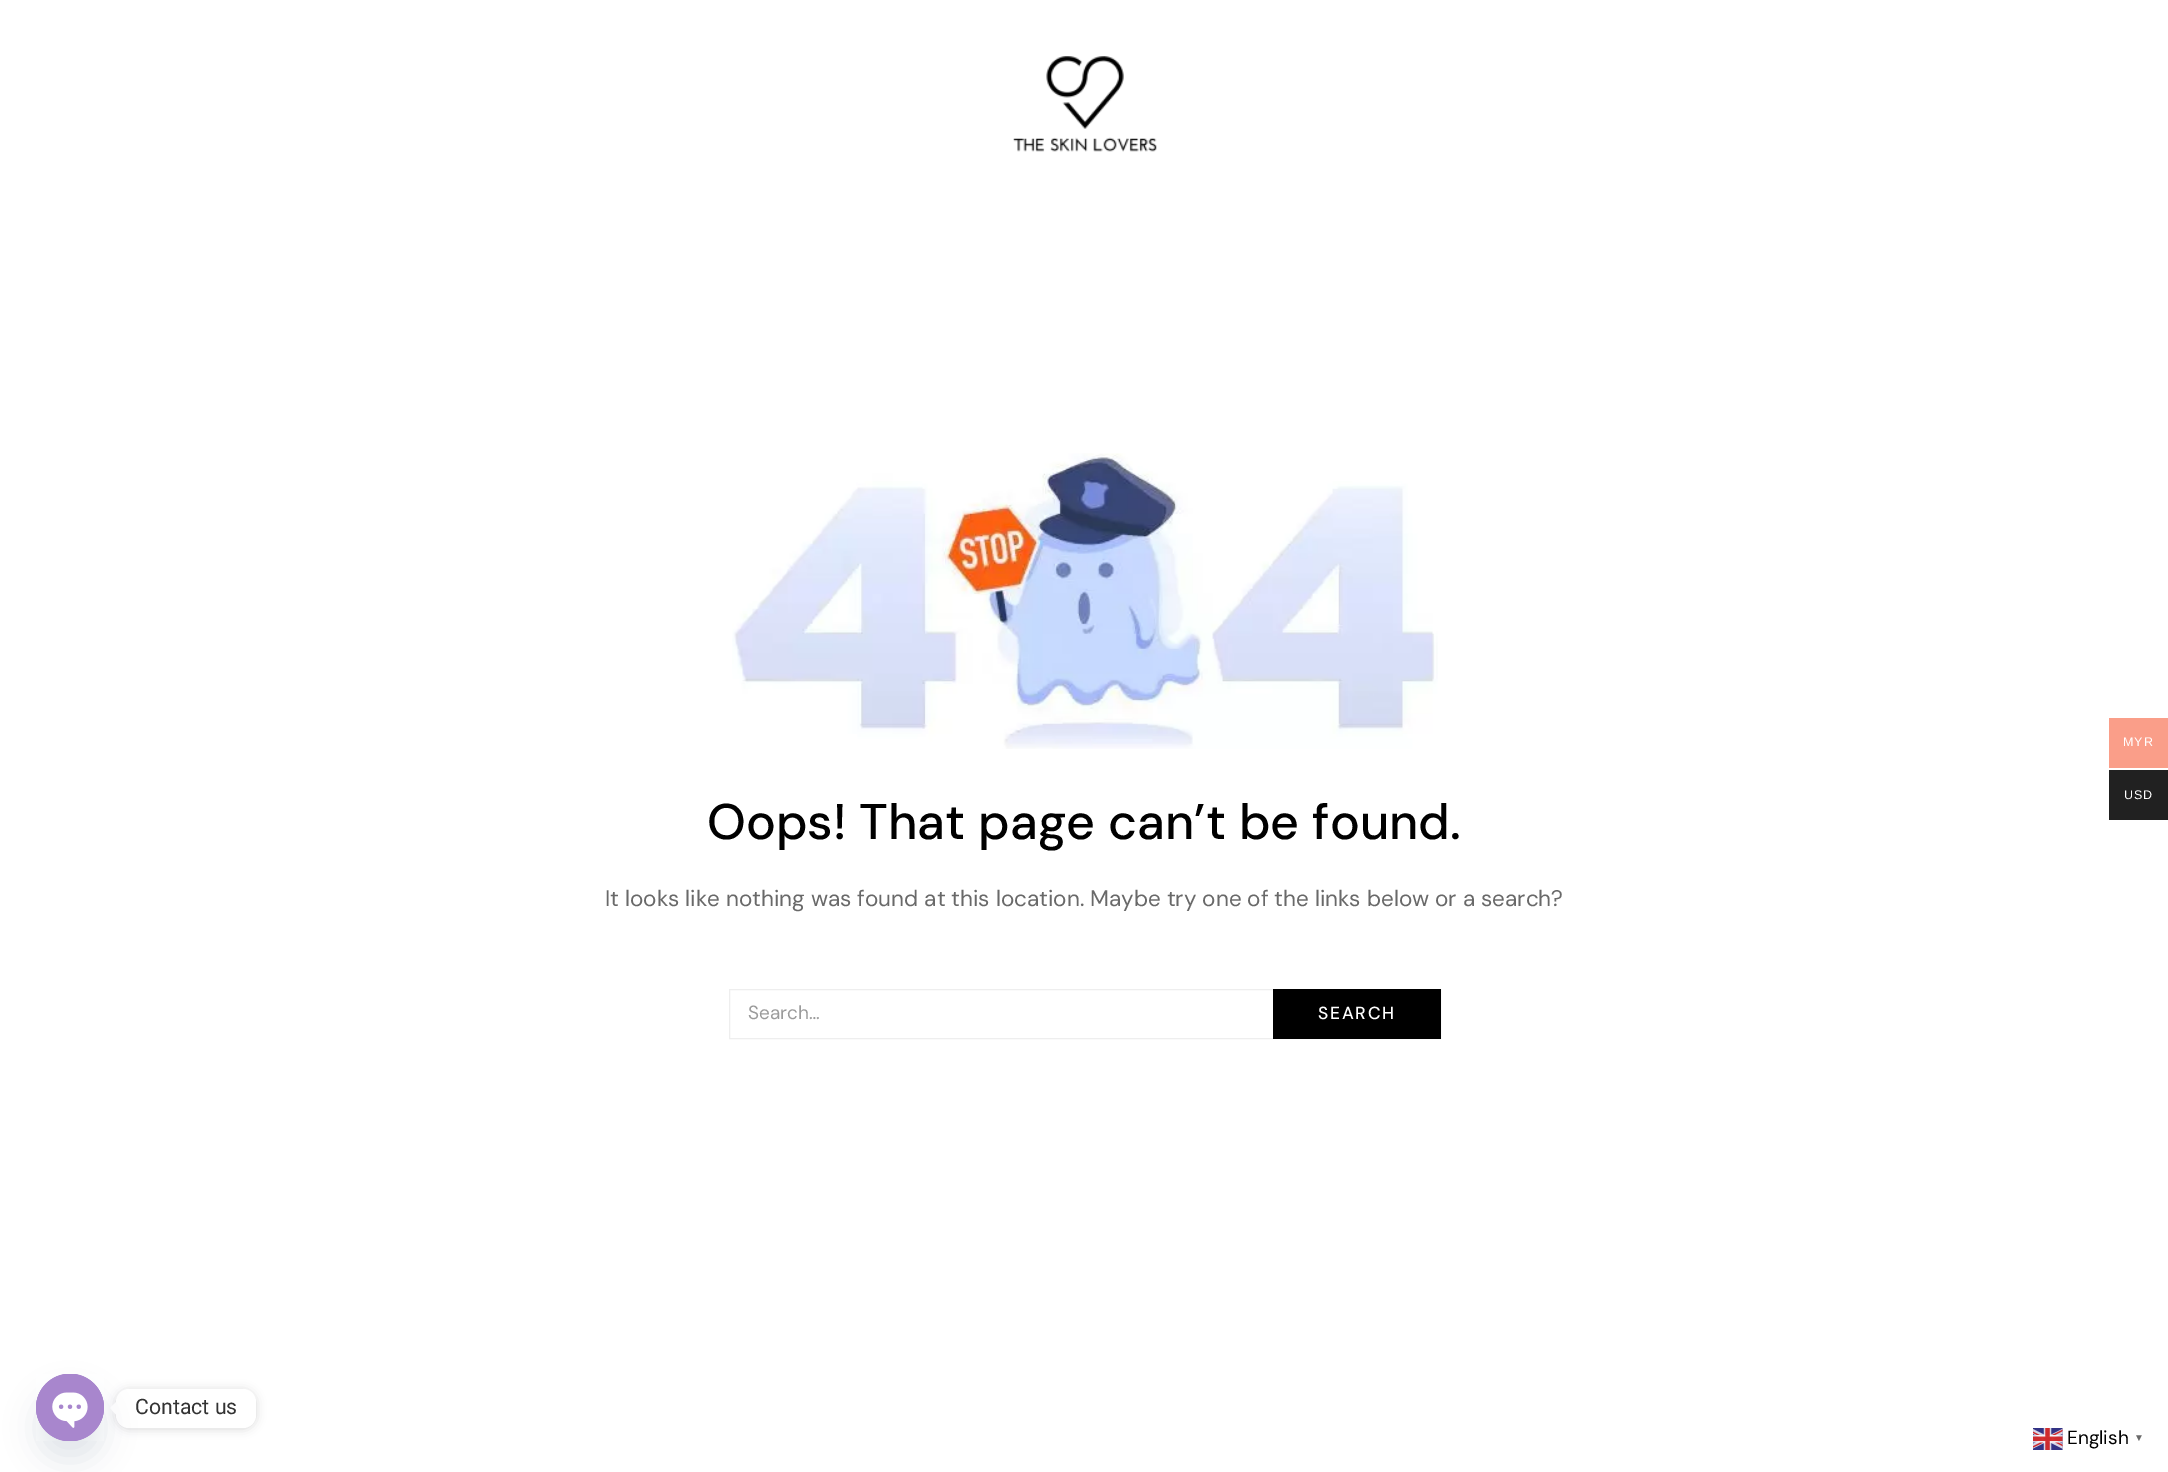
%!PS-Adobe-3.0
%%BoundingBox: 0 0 2168 1472
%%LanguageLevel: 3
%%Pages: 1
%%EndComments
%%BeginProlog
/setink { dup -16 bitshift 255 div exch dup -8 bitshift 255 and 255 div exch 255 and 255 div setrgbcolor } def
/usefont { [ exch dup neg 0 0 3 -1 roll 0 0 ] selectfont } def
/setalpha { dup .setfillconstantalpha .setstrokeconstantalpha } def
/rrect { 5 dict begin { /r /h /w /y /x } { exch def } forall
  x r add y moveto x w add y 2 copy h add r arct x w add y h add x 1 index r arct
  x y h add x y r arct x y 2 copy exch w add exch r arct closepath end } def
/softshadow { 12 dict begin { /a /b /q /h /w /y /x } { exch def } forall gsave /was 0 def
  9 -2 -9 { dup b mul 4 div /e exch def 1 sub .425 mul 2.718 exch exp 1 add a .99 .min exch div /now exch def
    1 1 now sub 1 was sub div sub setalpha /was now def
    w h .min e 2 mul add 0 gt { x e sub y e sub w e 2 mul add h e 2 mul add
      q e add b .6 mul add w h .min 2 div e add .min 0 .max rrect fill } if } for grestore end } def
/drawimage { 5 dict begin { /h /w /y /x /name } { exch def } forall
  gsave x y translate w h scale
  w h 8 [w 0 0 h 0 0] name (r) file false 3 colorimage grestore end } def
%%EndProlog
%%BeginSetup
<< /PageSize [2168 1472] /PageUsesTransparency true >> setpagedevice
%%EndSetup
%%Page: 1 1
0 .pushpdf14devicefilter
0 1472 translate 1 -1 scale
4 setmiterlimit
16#FFFFFF setink
0 0 2168 1472 rectfill
16#FA9E89 setink
2109 718 59 50 rectfill
/LiberationSans-Regular 12.5 usefont
16#FFFFFF setink
2123 746 moveto 1 0 (MYR) ashow
16#212121 setink
2109 770 59 50 rectfill
16#FFFFFF setink
2124 799 moveto 1 0 (USD) ashow
(img1.raw) 1013 56 144 96 drawimage
(img2.raw) 732 453 706 296 drawimage
/DMSans-Medium 50 usefont
16#000000 setink
707 839 moveto (Oops! That page can’t be found.) show
/DMSans-Regular 22.5 usefont
16#696969 setink
605 906 moveto (It looks like nothing was found at this location. Maybe try one of the links below or a search?) show
16#EEEEEE setink
729.5 989.5 711 49 rectstroke
/DMSans-Regular 19 usefont
16#9B9B9B setink
748 1019 moveto (Search…) show
16#000000 setink
1273 989 168 50 rectfill
/DMSans-Medium 17.5 usefont
16#FFFFFF setink
1318 1019 moveto 1.75 0 (SEARCH) ashow
16#000000 setink
116 1390 140 39 13 5 0.15 softshadow
16#FFFFFF setink
116 1389 140 39 13 rrect fill
116 1402 moveto 116 1414.5 lineto 110 1408 lineto closepath fill
16#49687E setink
36 1394 68 67 33.5 15 0.16 softshadow
(img3.raw) 36 1374 68 67 drawimage
/Roboto-Regular 21.25 usefont
16#333333 setink
135 1414 moveto (Contact us) show
(img4.raw) 2033 1428 30 22 drawimage
/DMSans-Regular 19 usefont
16#000000 setink
2067 1444 moveto (English) show
/LiberationSerif-Bold 10 usefont
16#696969 setink
2134 1441 moveto (▼) show
.poppdf14devicefilter showpage
%%EOF
